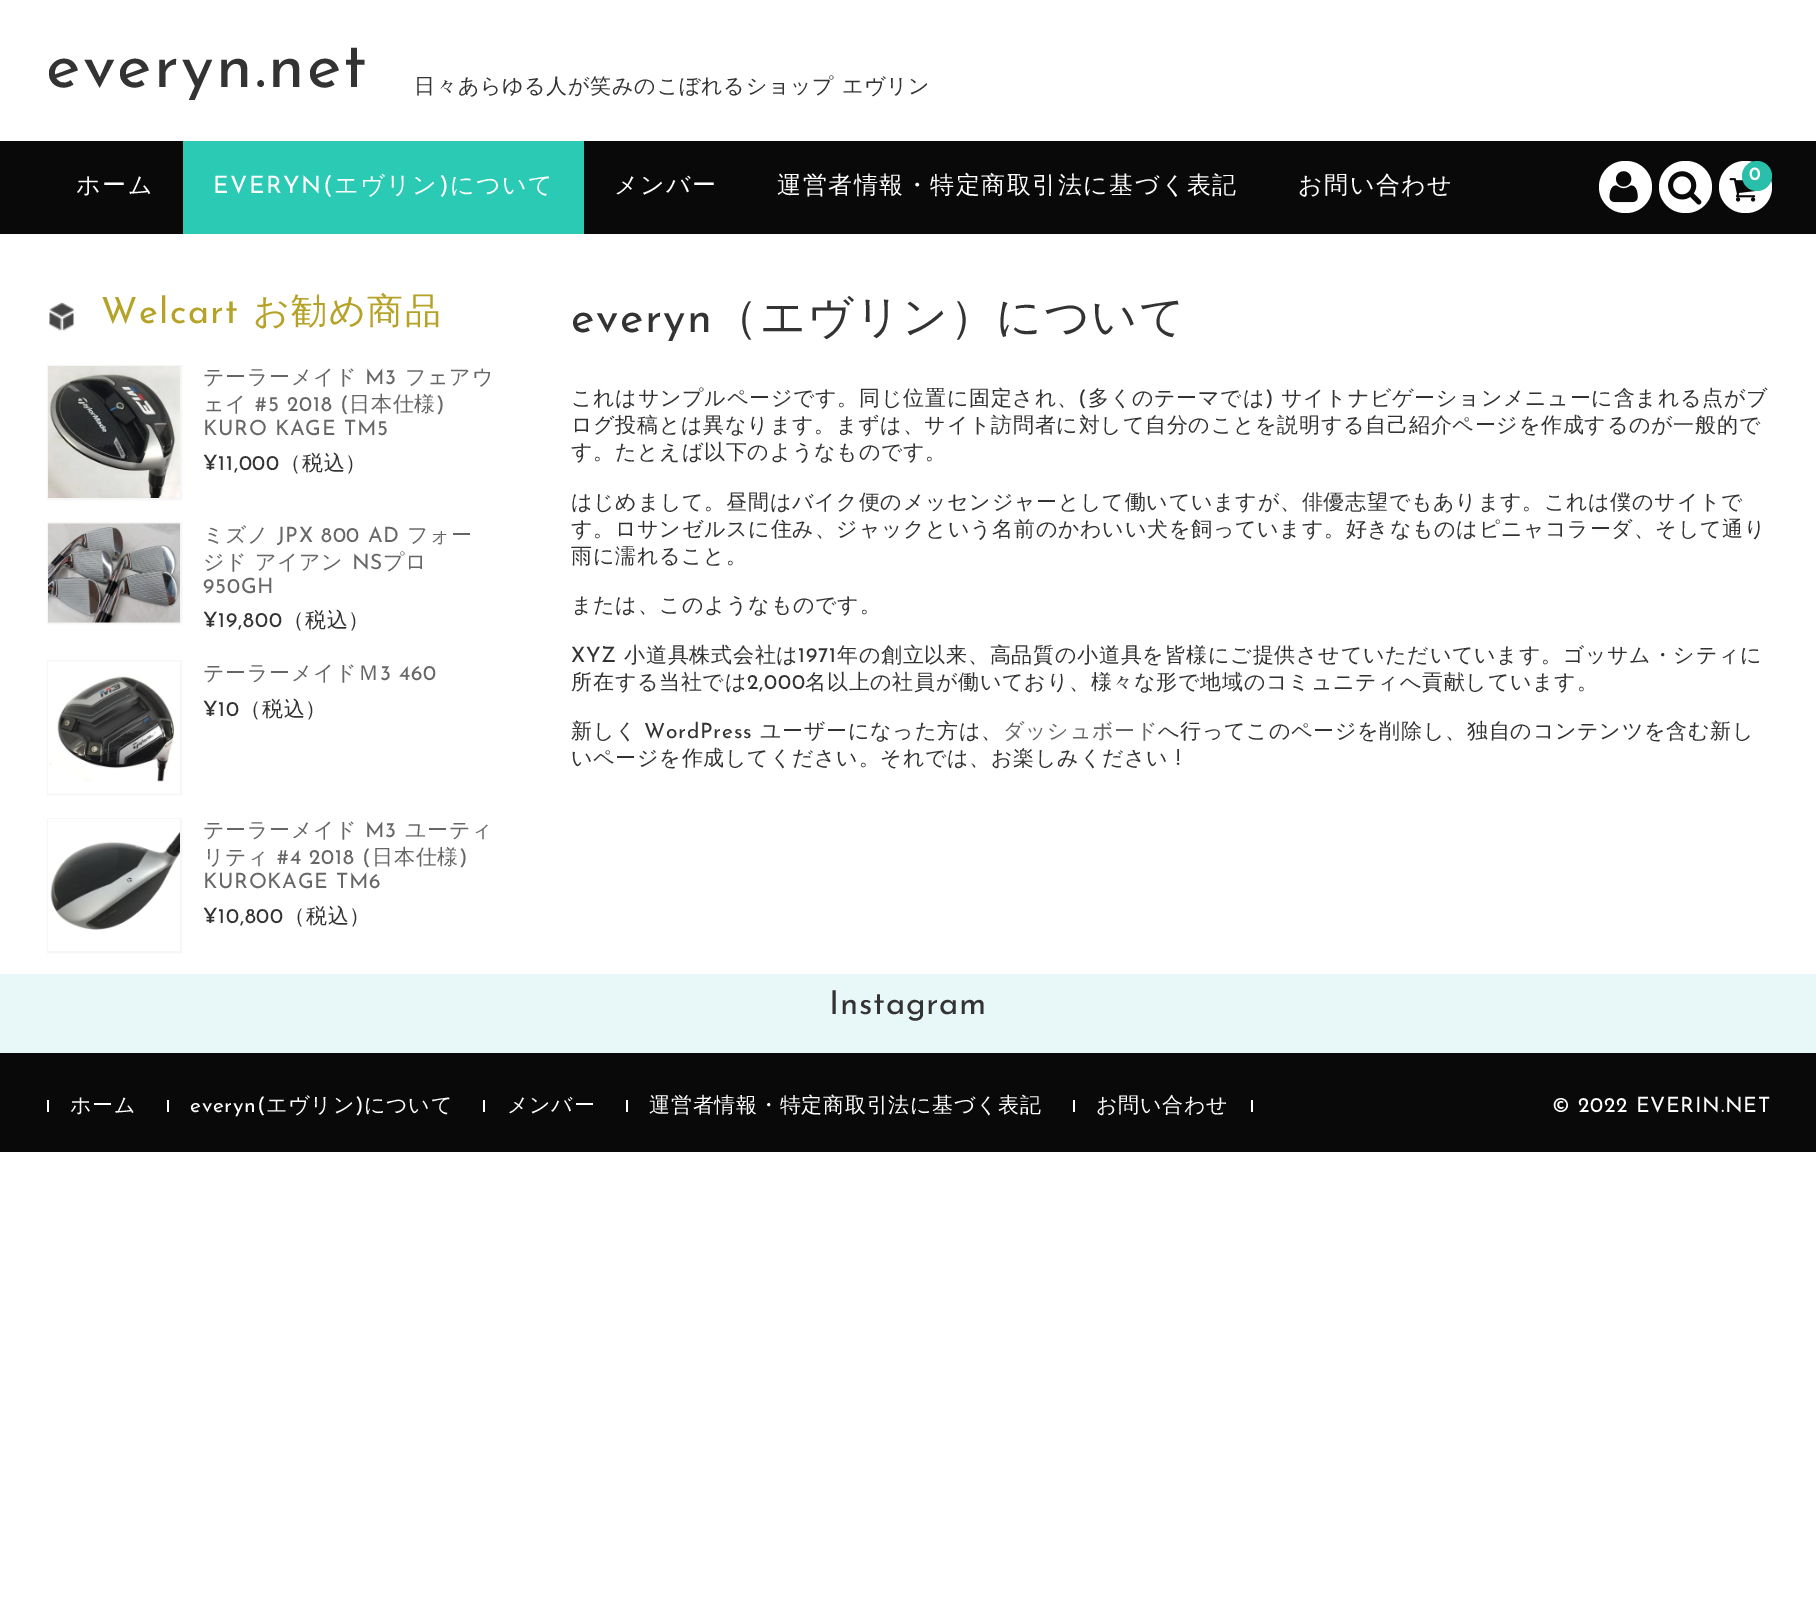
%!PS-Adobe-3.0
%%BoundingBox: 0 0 1816 1616
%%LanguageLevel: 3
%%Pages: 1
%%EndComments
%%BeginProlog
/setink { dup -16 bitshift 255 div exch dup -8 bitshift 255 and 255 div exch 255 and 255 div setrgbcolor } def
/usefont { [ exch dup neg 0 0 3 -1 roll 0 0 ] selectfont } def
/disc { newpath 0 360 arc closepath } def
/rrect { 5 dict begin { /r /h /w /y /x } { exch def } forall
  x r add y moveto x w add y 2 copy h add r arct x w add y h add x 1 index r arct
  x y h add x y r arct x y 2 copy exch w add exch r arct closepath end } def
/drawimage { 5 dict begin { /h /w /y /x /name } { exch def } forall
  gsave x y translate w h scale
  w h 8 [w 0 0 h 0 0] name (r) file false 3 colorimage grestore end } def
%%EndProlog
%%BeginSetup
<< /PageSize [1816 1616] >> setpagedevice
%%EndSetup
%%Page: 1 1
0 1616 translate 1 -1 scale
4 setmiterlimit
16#FFFFFF setink
0 0 1816 1616 rectfill
/JosefinSans-Thin 66 usefont
16#333333 setink
46 87 moveto 2.25 0 (everyn.net) ashow
/WenQuanYiZenHei-Medium 21 usefont
414 93 moveto 0.75 0 (日々あらゆる人が笑みのこぼれるショップ エヴリン) ashow
16#090909 setink
0 141 1816 93 rectfill
/WenQuanYiZenHei-Medium 24 usefont
16#FFFFFF setink
76 193 moveto 1.5 0 (ホーム) ashow
16#2ACAB5 setink
183 141 401 93 rectfill
/JosefinSans-Thin 24 usefont
16#FFFFFF setink
213 193 moveto 1.5 0 (EVERYN\() ashow
/WenQuanYiZenHei-Medium 24 usefont
334 193 moveto 1.5 0 (エヴリン) ashow
/JosefinSans-Thin 24 usefont
439 193 moveto 1.5 0 (\)) ashow
/WenQuanYiZenHei-Medium 24 usefont
450 193 moveto 1.5 0 (について) ashow
614 193 moveto 1.5 0 (メンバー) ashow
777 193 moveto 1.5 0 (運営者情報・特定商取引法に基づく表記) ashow
1298 193 moveto 1.5 0 (お問い合わせ) ashow
1599 161 53 52 26 rrect fill
(img1.raw) 1609 171 29 32 drawimage
1659 161 53 52 26 rrect fill
(img2.raw) 1668 171 34 34 drawimage
1719 161 53 52 26 rrect fill
(img3.raw) 1729 178 29 24 drawimage
16#2ABFAB setink
1757 176 15 disc fill
/JosefinSans-Bold 18 usefont
16#FFFFFF setink
1749 180 moveto 1.5 0 (0) ashow
(img4.raw) 49 302 25 29 drawimage
/JosefinSans-Thin 36 usefont
16#B5A226 setink
101 323 moveto 1.5 0 (Welcart) ashow
/WenQuanYiZenHei-Medium 36 usefont
253 323 moveto 1.5 0 (お勧め商品) ashow
16#F6F6F6 setink
2 setlinewidth
48 366 133 133 rectstroke
(img5.raw) 48 366 132 132 drawimage
/WenQuanYiZenHei-Medium 21 usefont
16#666666 setink
203 384 moveto 0.75 0 (テーラーメイド) ashow
/JosefinSans-Thin 21 usefont
365 384 moveto 0.75 0 (M3) ashow
/WenQuanYiZenHei-Medium 21 usefont
405 384 moveto 0.75 0 (フェアウ) ashow
203 411 moveto 0.75 0 (ェイ) ashow
/JosefinSans-Thin 21 usefont
255 411 moveto 0.75 0 (#5 2018 \() ashow
/WenQuanYiZenHei-Medium 21 usefont
349 411 moveto 0.75 0 (日本仕様) ashow
/JosefinSans-Thin 21 usefont
436 411 moveto 0.75 0 (\)) ashow
203 435 moveto 0.75 0 (KURO KAGE TM5) ashow
16#333333 setink
203 470 moveto 0.75 0 (¥11,000) ashow
/WenQuanYiZenHei-Medium 21 usefont
280 470 moveto 0.75 0 (（税込）) ashow
16#F6F6F6 setink
48 523 133 100 rectstroke
(img6.raw) 48 523 132 100 drawimage
16#666666 setink
203 542 moveto 0.75 0 (ミズノ) ashow
/JosefinSans-Thin 21 usefont
277 542 moveto 0.75 0 (JPX 800 AD) ashow
/WenQuanYiZenHei-Medium 21 usefont
407 542 moveto 0.75 0 (フォー) ashow
203 569 moveto 0.75 0 (ジド アイアン) ashow
/JosefinSans-Thin 21 usefont
352 569 moveto 0.75 0 (NS) ashow
/WenQuanYiZenHei-Medium 21 usefont
383 569 moveto 0.75 0 (プロ) ashow
/JosefinSans-Thin 21 usefont
203 593 moveto 0.75 0 (950GH) ashow
16#333333 setink
203 627 moveto 0.75 0 (¥19,800) ashow
/WenQuanYiZenHei-Medium 21 usefont
283 627 moveto 0.75 0 (（税込）) ashow
16#F6F6F6 setink
48 661 133 133 rectstroke
(img7.raw) 48 661 132 133 drawimage
16#666666 setink
203 680 moveto 0.75 0 (テーラーメイドＭ) ashow
/JosefinSans-Thin 21 usefont
380 680 moveto 0.75 0 (3 460) ashow
16#333333 setink
203 716 moveto 0.75 0 (¥10) ashow
/WenQuanYiZenHei-Medium 21 usefont
240 716 moveto 0.75 0 (（税込）) ashow
16#F6F6F6 setink
48 819 133 133 rectstroke
(img8.raw) 48 819 132 132 drawimage
16#666666 setink
203 837 moveto 0.75 0 (テーラーメイド) ashow
/JosefinSans-Thin 21 usefont
365 837 moveto 0.75 0 (M3) ashow
/WenQuanYiZenHei-Medium 21 usefont
405 837 moveto 0.75 0 (ユーティ) ashow
203 864 moveto 0.75 0 (リティ) ashow
/JosefinSans-Thin 21 usefont
277 864 moveto 0.75 0 (#4 2018 \() ashow
/WenQuanYiZenHei-Medium 21 usefont
372 864 moveto 0.75 0 (日本仕様) ashow
/JosefinSans-Thin 21 usefont
459 864 moveto 0.75 0 (\)) ashow
203 888 moveto 0.75 0 (KUROKAGE TM6) ashow
16#333333 setink
203 923 moveto 0.75 0 (¥10,800) ashow
/WenQuanYiZenHei-Medium 21 usefont
284 923 moveto 0.75 0 (（税込）) ashow
/JosefinSans-Thin 45 usefont
571 332 moveto 1.5 0 (everyn) ashow
/WenQuanYiZenHei-Medium 45 usefont
713 332 moveto 1.5 0 (（エヴリン）について) ashow
/WenQuanYiZenHei-Medium 21 usefont
571 405 moveto 0.75 0 (これはサンプルページです。同じ位置に固定され、) ashow
/JosefinSans-Thin 21 usefont
1078 405 moveto 0.75 0 (\() ashow
/WenQuanYiZenHei-Medium 21 usefont
1088 405 moveto 0.75 0 (多くのテーマでは) ashow
/JosefinSans-Thin 21 usefont
1265 405 moveto 0.75 0 (\)) ashow
/WenQuanYiZenHei-Medium 21 usefont
1281 405 moveto 0.75 0 (サイトナビゲーションメニューに含まれる点がブ) ashow
571 432 moveto 0.75 0 (ログ投稿とは異なります。まずは、サイト訪問者に対して自分のことを説明する自己紹介ページを作成するのが一般的で) ashow
571 459 moveto 0.75 0 (す。たとえば以下のようなものです。) ashow
571 509 moveto 0.75 0 (はじめまして。昼間はバイク便のメッセンジャーとして働いていますが、俳優志望でもあります。これは僕のサイトで) ashow
571 536 moveto 0.75 0 (す。ロサンゼルスに住み、ジャックという名前のかわいい犬を飼っています。好きなものはピニャコラーダ、そして通り) ashow
571 563 moveto 0.75 0 (雨に濡れること。) ashow
571 612 moveto 0.75 0 (または、このようなものです。) ashow
/JosefinSans-Thin 21 usefont
571 662 moveto 0.75 0 (XYZ) ashow
/WenQuanYiZenHei-Medium 21 usefont
624 662 moveto 0.75 0 (小道具株式会社は) ashow
/JosefinSans-Thin 21 usefont
798 662 moveto 0.75 0 (1971) ashow
/WenQuanYiZenHei-Medium 21 usefont
837 662 moveto 0.75 0 (年の創立以来、高品質の小道具を皆様にご提供させていただいています。ゴッサム・シティに) ashow
571 689 moveto 0.75 0 (所在する当社では) ashow
/JosefinSans-Thin 21 usefont
747 689 moveto 0.75 0 (2,000) ashow
/WenQuanYiZenHei-Medium 21 usefont
805 689 moveto 0.75 0 (名以上の社員が働いており、様々な形で地域のコミュニティへ貢献しています。) ashow
571 738 moveto 0.75 0 (新しく) ashow
/JosefinSans-Thin 21 usefont
644 738 moveto 0.75 0 (WordPress) ashow
/WenQuanYiZenHei-Medium 21 usefont
760 738 moveto 0.75 0 (ユーザーになった方は、) ashow
16#666666 setink
1003 738 moveto 0.75 0 (ダッシュボード) ashow
16#333333 setink
1158 738 moveto 0.75 0 (へ行ってこのページを削除し、独自のコンテンツを含む新し) ashow
571 765 moveto 0.75 0 (いページを作成してください。それでは、お楽しみください) ashow
/JosefinSans-Thin 21 usefont
1176 765 moveto 0.75 0 (!) ashow
16#E8F7F7 setink
0 974 1816 79 rectfill
/JosefinSans-Thin 33 usefont
16#333333 setink
829 1014 moveto 0.75 0 (Instagram) ashow
16#090909 setink
0 1053 1816 99 rectfill
16#FFFFFF setink
47 1100 2 12 rectfill
/WenQuanYiZenHei-Medium 21 usefont
70 1112 moveto 0.75 0 (ホーム) ashow
167 1100 2 12 rectfill
/JosefinSans-Thin 21 usefont
190 1112 moveto 0.75 0 (everyn\() ashow
/WenQuanYiZenHei-Medium 21 usefont
266 1112 moveto 0.75 0 (エヴリン) ashow
/JosefinSans-Thin 21 usefont
355 1112 moveto 0.75 0 (\)) ashow
/WenQuanYiZenHei-Medium 21 usefont
364 1112 moveto 0.75 0 (について) ashow
483 1100 2 12 rectfill
507 1112 moveto 0.75 0 (メンバー) ashow
626 1100 2 12 rectfill
649 1112 moveto 0.75 0 (運営者情報・特定商取引法に基づく表記) ashow
1073 1100 2 12 rectfill
1096 1112 moveto 0.75 0 (お問い合わせ) ashow
1251 1100 2 12 rectfill
/JosefinSans-Thin 21 usefont
1552 1112 moveto 0.75 0 (© 2022 EVERIN.NET) ashow
showpage
%%EOF
